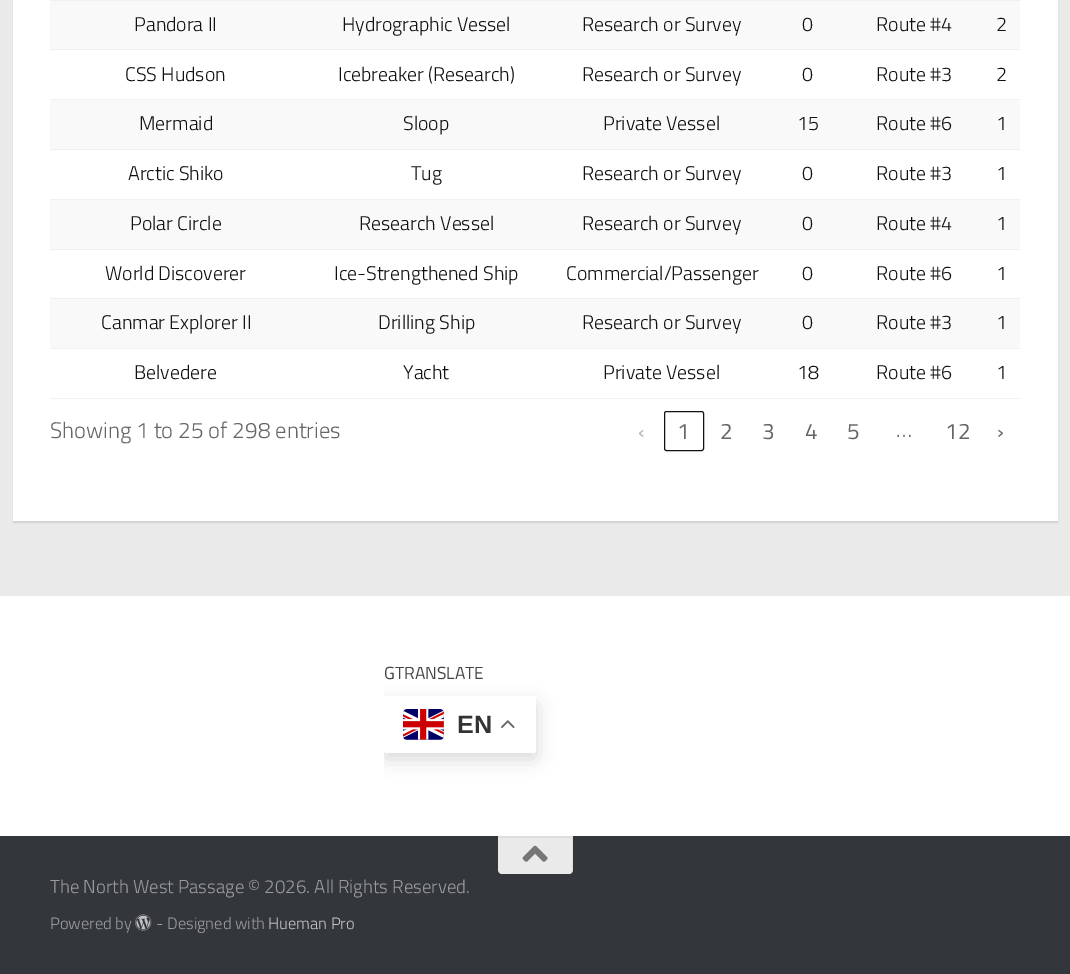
%!PS-Adobe-3.0
%%BoundingBox: 0 0 1070 974
%%LanguageLevel: 3
%%Pages: 1
%%EndComments
%%BeginProlog
/setink { dup -16 bitshift 255 div exch dup -8 bitshift 255 and 255 div exch 255 and 255 div setrgbcolor } def
/usefont { [ exch dup neg 0 0 3 -1 roll 0 0 ] selectfont } def
/setalpha { dup .setfillconstantalpha .setstrokeconstantalpha } def
/rrect { 5 dict begin { /r /h /w /y /x } { exch def } forall
  x r add y moveto x w add y 2 copy h add r arct x w add y h add x 1 index r arct
  x y h add x y r arct x y 2 copy exch w add exch r arct closepath end } def
/softshadow { 12 dict begin { /a /b /q /h /w /y /x } { exch def } forall gsave /was 0 def
  9 -2 -9 { dup b mul 4 div /e exch def 1 sub .425 mul 2.718 exch exp 1 add a .99 .min exch div /now exch def
    1 1 now sub 1 was sub div sub setalpha /was now def
    w h .min e 2 mul add 0 gt { x e sub y e sub w e 2 mul add h e 2 mul add
      q e add b .6 mul add w h .min 2 div e add .min 0 .max rrect fill } if } for grestore end } def
/drawimage { 5 dict begin { /h /w /y /x /name } { exch def } forall
  gsave x y translate w h scale
  w h 8 [w 0 0 h 0 0] name (r) file false 3 colorimage grestore end } def
%%EndProlog
%%BeginSetup
<< /PageSize [1070 974] /PageUsesTransparency true >> setpagedevice
%%EndSetup
%%Page: 1 1
0 .pushpdf14devicefilter
0 974 translate 1 -1 scale
4 setmiterlimit
16#EAEAEA setink
0 0 1070 974 rectfill
16#000000 setink
13 -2 1045 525 0 0.5 0.1 softshadow
[
    [13 0 1045 521 16#FFFFFF]
    [50 0 971 1 16#F1F1F1]
    [50 1 970 48 16#F9F9F9]
] { aload pop setink rectfill } forall
/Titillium-Light 19.75 usefont
16#111111 setink
[
    [(Pandora II) 134 31]
    [(Hydrographic Vessel) 342 31]
    [(Research or Survey) 582 31]
    [(0) 802 31]
    [(Route #4) 876 31]
] { aload pop moveto show } forall
16#F1F1F1 setink
50 49 971 1 rectfill
16#111111 setink
[
    [(2) 996 31]
    [(CSS Hudson) 125 81]
    [(Icebreaker \(Research\)) 338 81]
    [(Research or Survey) 582 81]
    [(0) 802 81]
    [(Route #3) 876 81]
] { aload pop moveto show } forall
16#F1F1F1 setink
50 99 971 1 rectfill
16#111111 setink
996 81 moveto (2) show
16#F9F9F9 setink
50 100 970 49 rectfill
16#111111 setink
[
    [(Mermaid) 139 130]
    [(Sloop) 403 130]
    [(Private Vessel) 603 130]
    [(15) 797 130]
    [(Route #6) 876 130]
] { aload pop moveto show } forall
16#F1F1F1 setink
50 149 971 1 rectfill
16#111111 setink
[
    [(1) 996 130]
    [(Arctic Shiko) 128 180]
    [(Tug) 411 180]
    [(Research or Survey) 582 180]
    [(0) 802 180]
    [(Route #3) 876 180]
] { aload pop moveto show } forall
16#F1F1F1 setink
50 199 971 1 rectfill
16#111111 setink
996 180 moveto (1) show
16#F9F9F9 setink
50 200 970 49 rectfill
16#111111 setink
[
    [(Polar Circle) 130 230]
    [(Research Vessel) 359 230]
    [(Research or Survey) 582 230]
    [(0) 802 230]
    [(Route #4) 876 230]
] { aload pop moveto show } forall
16#F1F1F1 setink
50 249 971 1 rectfill
16#111111 setink
[
    [(1) 996 230]
    [(World Discoverer) 105 280]
    [(Ice-Strengthened Ship) 334 280]
    [(Commercial/Passenger) 566 280]
    [(0) 802 280]
    [(Route #6) 876 280]
] { aload pop moveto show } forall
16#F1F1F1 setink
50 298 971 1 rectfill
16#111111 setink
996 280 moveto (1) show
16#F9F9F9 setink
50 299 970 49 rectfill
16#111111 setink
[
    [(Canmar Explorer II) 101 329]
    [(Drilling Ship) 378 329]
    [(Research or Survey) 582 329]
    [(0) 802 329]
    [(Route #3) 876 329]
] { aload pop moveto show } forall
16#F1F1F1 setink
50 348 971 1 rectfill
16#111111 setink
[
    [(1) 996 329]
    [(Belvedere) 134 379]
    [(Yacht) 403 379]
    [(Private Vessel) 603 379]
    [(18) 797 379]
    [(Route #6) 876 379]
] { aload pop moveto show } forall
16#F1F1F1 setink
50 398 971 1 rectfill
16#111111 setink
996 379 moveto (1) show
/Titillium-Light 22.5 usefont
16#666666 setink
50 438 moveto (Showing 1 to 25 of 298 entries) show
/Titillium-Regular 22.5 usefont
16#B3B3B3 setink
638 439 moveto (‹) show
16#111111 setink
664.5 411.5 39 39 2 rrect stroke
16#666666 setink
[
    [(1) 677 439]
    [(2) 720 439]
    [(3) 762 439]
    [(4) 805 439]
    [(5) 847 439]
] { aload pop moveto show } forall
/Titillium-Light 22.5 usefont
896 437 moveto (…) show
/Titillium-Regular 22.5 usefont
945 439 moveto (12) show
997 439 moveto (›) show
16#FFFFFF setink
0 596 1070 240 rectfill
/Titillium-Regular 17.5 usefont
16#444444 setink
384 679 moveto (GTRANSLATE) show
gsave
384 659 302 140 rectclip
16#000000 setink
384 703 152 56 2.5 9.5 0.15 softshadow
grestore
16#FFFFFF setink
384 696 152 57 2.5 rrect fill
(img1.raw) 403 709 41 31 drawimage
/LiberationSans-Bold 25 usefont
16#333333 setink
457 733 moveto (EN) show
(img2.raw) 501 720 14 9 drawimage
16#33363B setink
0 836 1070 138 rectfill
16#EAEAEA setink
498 836 moveto 573 836 lineto 573 870 lineto 573 872 571 874 569 874 curveto 502 874 lineto 500 874 498 872 498 870 curveto closepath fill
0.05 setalpha
16#000000 setink
498 838 moveto 572 838 lineto 572 873 lineto 572 872 573 871 573 870 curveto 573 836 lineto 498 836 lineto closepath fill
1 setalpha
(img3.raw) 522 845 26 17 drawimage
/Titillium-Light 18.75 usefont
16#999B9D setink
50 893 moveto (The North West Passage © 2026. All Rights Reserved.) show
/Titillium-Light 16.5 usefont
50 929 moveto (Powered by) show
(img4.raw) 135 914 17 17 drawimage
156 929 moveto (- Designed with) show
16#C2C3C4 setink
268 929 moveto (Hueman Pro) show
.poppdf14devicefilter showpage
%%EOF
